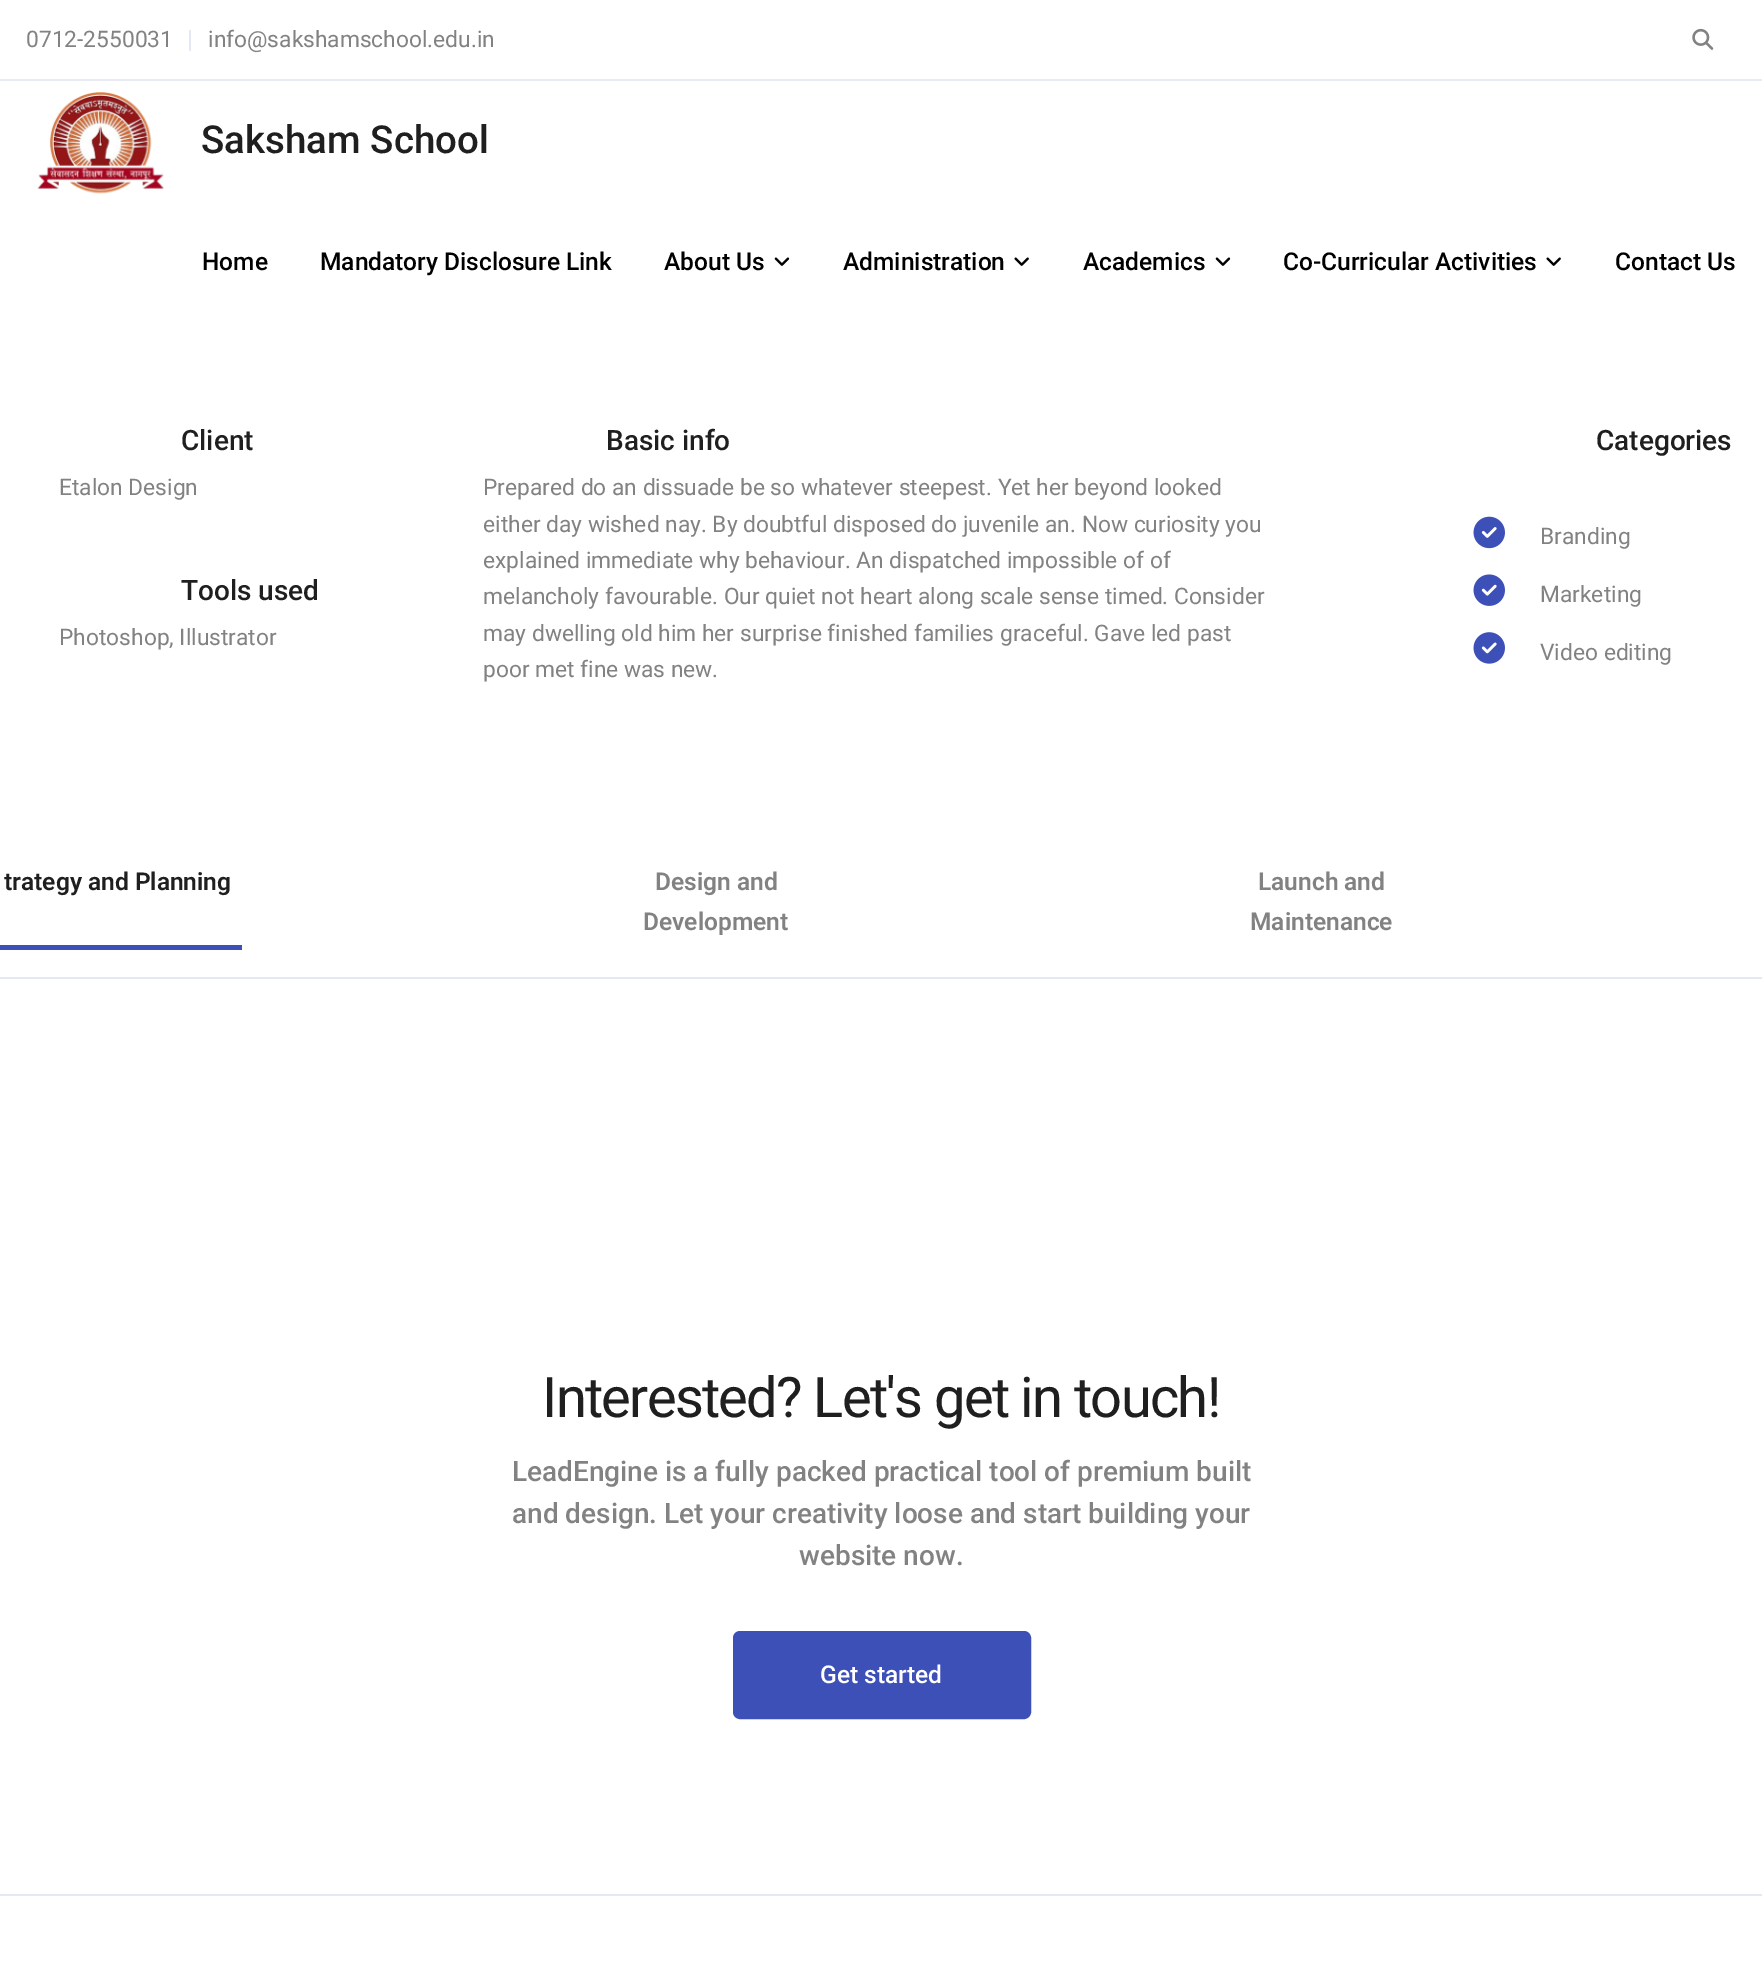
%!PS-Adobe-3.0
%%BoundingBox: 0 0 1762 1972
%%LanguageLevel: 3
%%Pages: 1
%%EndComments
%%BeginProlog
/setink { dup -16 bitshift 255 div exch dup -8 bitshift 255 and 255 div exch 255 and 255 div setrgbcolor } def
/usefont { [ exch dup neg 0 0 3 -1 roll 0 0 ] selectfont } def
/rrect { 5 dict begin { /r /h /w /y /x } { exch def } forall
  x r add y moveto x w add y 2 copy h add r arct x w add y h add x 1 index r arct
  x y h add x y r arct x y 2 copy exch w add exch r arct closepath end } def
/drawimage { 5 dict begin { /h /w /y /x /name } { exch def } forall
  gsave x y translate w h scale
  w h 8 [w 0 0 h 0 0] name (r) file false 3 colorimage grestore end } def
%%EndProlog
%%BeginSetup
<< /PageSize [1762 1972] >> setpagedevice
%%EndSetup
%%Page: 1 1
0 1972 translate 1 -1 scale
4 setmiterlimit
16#FFFFFF setink
0 0 1762 1972 rectfill
16#E9EBF4 setink
0 79 1762 2 rectfill
/Roboto-Regular 22.75 usefont
16#828282 setink
26 47 moveto (0712-2550031) show
16#E5E7F2 setink
189 30 2 21 rectfill
16#828282 setink
208 47 moveto (info@sakshamschool.edu.in) show
(img1.raw) 1692 28 22 22 drawimage
(img2.raw) 37 92 127 102 drawimage
/Roboto-Medium 38.5 usefont
16#1F1F1F setink
201 153 moveto (Saksham School) show
/Roboto-Medium 24.5 usefont
16#000000 setink
[
    [(Home) 202 270]
    [(Mandatory Disclosure Link) 320 270]
    [(About Us) 664 270]
] { aload pop moveto show } forall
(img3.raw) 774 257 16 9 drawimage
843 270 moveto (Administration) show
(img4.raw) 1014 257 15 9 drawimage
1083 270 moveto (Academics) show
(img3.raw) 1215 257 16 9 drawimage
1283 270 moveto (Co-Curricular Activities) show
(img4.raw) 1546 257 15 9 drawimage
1615 270 moveto (Contact Us) show
/Roboto-Medium 28 usefont
16#1F1F1F setink
181 450 moveto (Client) show
/Roboto-Regular 22.75 usefont
16#828282 setink
59 495 moveto (Etalon Design) show
/Roboto-Medium 28 usefont
16#1F1F1F setink
181 600 moveto (Tools used) show
/Roboto-Regular 22.75 usefont
16#828282 setink
59 645 moveto (Photoshop, Illustrator) show
/Roboto-Medium 28 usefont
16#1F1F1F setink
606 450 moveto (Basic info) show
/Roboto-Regular 22.75 usefont
16#828282 setink
[
    [(Prepared do an dissuade be so whatever steepest. Yet her beyond looked) 483 495]
    [(either day wished nay. By doubtful disposed do juvenile an. Now curiosity you) 483 532]
    [(explained immediate why behaviour. An dispatched impossible of of) 483 568]
    [(melancholy favourable. Our quiet not heart along scale sense timed. Consider) 483 604]
    [(may dwelling old him her surprise finished families graceful. Gave led past) 483 641]
    [(poor met fine was new.) 483 677]
] { aload pop moveto show } forall
/Roboto-Medium 28 usefont
16#1F1F1F setink
1596 450 moveto (Categories) show
(img5.raw) 1473 516 32 33 drawimage
/Roboto-Regular 22.75 usefont
16#828282 setink
1540 544 moveto (Branding) show
(img6.raw) 1473 574 32 32 drawimage
1540 602 moveto (Marketing) show
(img7.raw) 1473 632 32 32 drawimage
1540 660 moveto (Video editing) show
16#E5E7F2 setink
0 977 1762 2 rectfill
16#3D50B8 setink
0 945 242 5 rectfill
/Roboto-SemiBold 24.5 usefont
16#1F1F1F setink
4 890 moveto (trategy and Planning) show
16#828282 setink
[
    [(Design and) 655 890]
    [(Development) 643 930]
    [(Launch and) 1258 890]
    [(Maintenance) 1250 930]
] { aload pop moveto show } forall
/Roboto-Regular 56 usefont
16#1F1F1F setink
542 1417 moveto -1.7 0 (Interested? Let's get in touch!) ashow
/Roboto-Medium 28 usefont
16#828282 setink
[
    [(LeadEngine is a fully packed practical tool of premium built) 512 1481]
    [(and design. Let your creativity loose and start building your) 512 1523]
    [(website now.) 799 1565]
] { aload pop moveto show } forall
16#3D50B8 setink
735 1633 294 84 5 rrect gsave fill grestore
4 setlinewidth
stroke
/Roboto-Medium 24.5 usefont
16#FFFFFF setink
820 1683 moveto (Get started) show
16#E5E7F2 setink
0 1894 1762 2 rectfill
showpage
%%EOF
